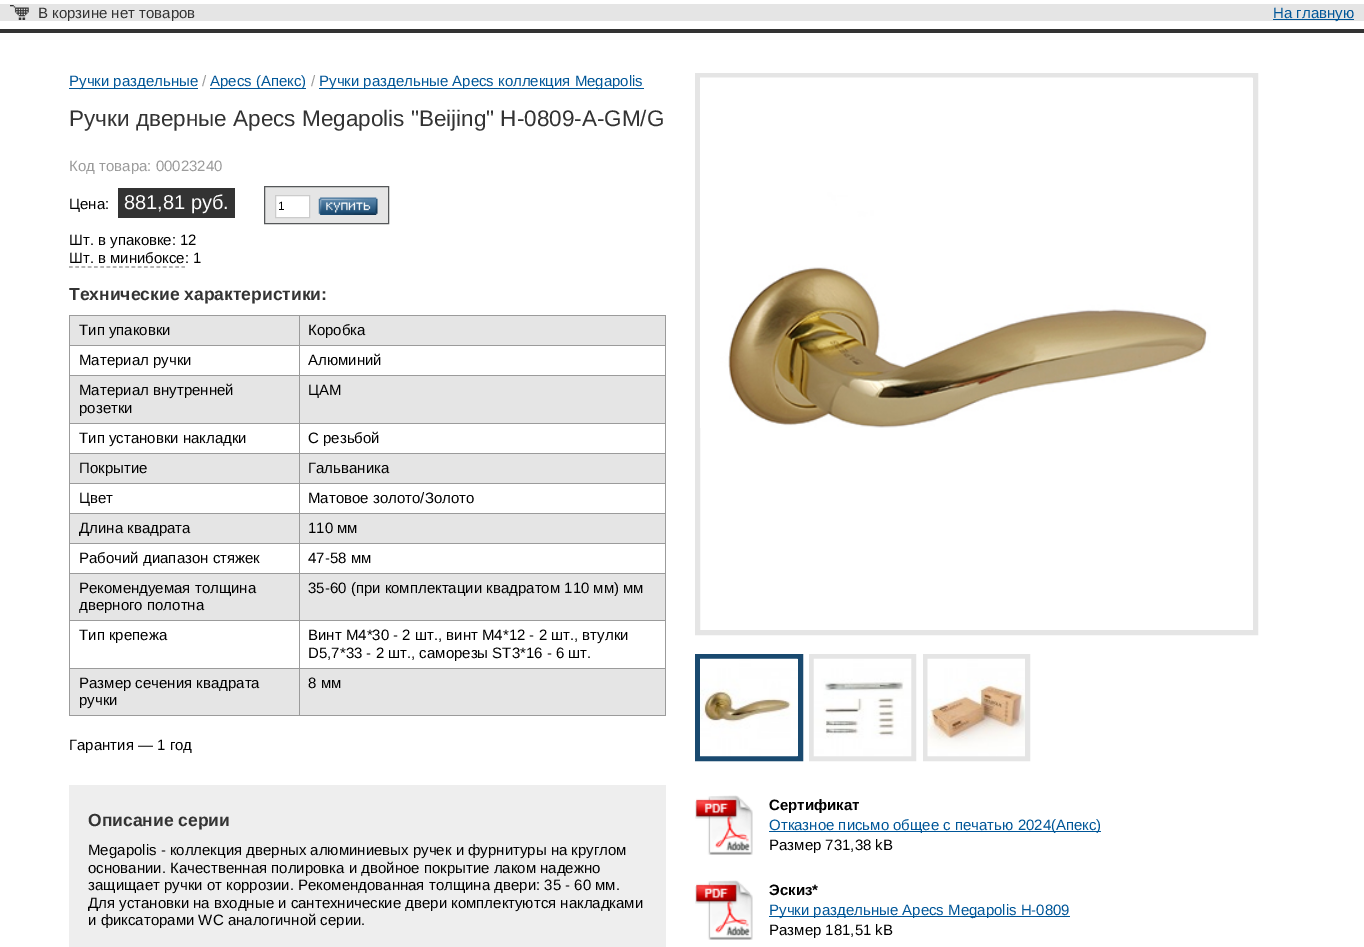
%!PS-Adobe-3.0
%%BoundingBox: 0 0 1364 947
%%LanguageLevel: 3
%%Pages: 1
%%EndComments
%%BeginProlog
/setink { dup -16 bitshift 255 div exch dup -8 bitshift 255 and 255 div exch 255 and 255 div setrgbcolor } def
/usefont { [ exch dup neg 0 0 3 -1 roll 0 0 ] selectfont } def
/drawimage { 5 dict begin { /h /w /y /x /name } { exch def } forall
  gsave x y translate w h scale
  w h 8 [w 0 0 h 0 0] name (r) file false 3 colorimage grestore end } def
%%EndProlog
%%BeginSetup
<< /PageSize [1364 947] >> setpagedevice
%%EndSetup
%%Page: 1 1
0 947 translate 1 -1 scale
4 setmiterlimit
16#FFFFFF setink
0 0 1364 947 rectfill
16#333333 setink
0 29 1364 4 rectfill
16#E5E5E5 setink
0 4 1364 17 rectfill
(img1.raw) 10 5 19 15 drawimage
/LiberationSans-Regular 15 usefont
16#333333 setink
38 18 moveto (В корзине нет товаров) show
16#005698 setink
1273 19 81 1 rectfill
1273 18 moveto (На главную) show
69 88 129 1 rectfill
69 86 moveto (Ручки раздельные) show
16#9B9B9B setink
202 86 moveto (/) show
16#005698 setink
210 88 96 1 rectfill
210 86 moveto (Apecs \(Апекс\)) show
16#9B9B9B setink
311 86 moveto (/) show
16#005698 setink
319 88 325 1 rectfill
319 86 moveto (Ручки раздельные Apecs коллекция Megapolis) show
/LiberationSans-Regular 22.5 usefont
16#333333 setink
69 126 moveto (Ручки дверные Apecs Megapolis "Beijing" H-0809-A-GM/G) show
/LiberationSans-Regular 15 usefont
16#9B9B9B setink
69 171 moveto (Код товара: 00023240) show
16#000000 setink
69 209 moveto (Цена:) show
16#333333 setink
118 188 117 30 rectfill
/LiberationSans-Regular 20 usefont
16#FFFFFF setink
124 209 moveto (881,81 руб.) show
16#E5E5E5 setink
264.5 186.5 moveto 388.5 186.5 lineto 388.5 223.5 lineto 264.5 223.5 lineto closepath gsave fill grestore
16#555759 setink
stroke
16#FFFFFF setink
275.5 195.5 moveto 309.5 195.5 lineto 309.5 217.5 lineto 275.5 217.5 lineto closepath gsave fill grestore
16#CCCCCC setink
stroke
/LiberationSans-Regular 12 usefont
16#000000 setink
278 210 moveto (1) show
(img2.raw) 318 197 60 18 drawimage
/LiberationSans-Regular 15 usefont
69 245 moveto (Шт. в упаковке: 12) show
69 263 moveto (Шт. в минибоксе: 1) show
16#9B9B9B setink
1.2 setlinewidth
[3.75 2.5] 0 setdash
69 267 moveto 185 267 lineto stroke
/LiberationSans-Bold 17.5 usefont
16#333333 setink
69 300 moveto (Технические характеристики:) show
[
    [70 316 229 29 16#E5E5E5]
    [299 315 367 1 16#9B9B9B]
    [299 345 367 1 16#9B9B9B]
    [299 375 367 1 16#9B9B9B]
    [299 423 367 1 16#9B9B9B]
    [299 453 367 1 16#9B9B9B]
    [299 483 367 1 16#9B9B9B]
    [299 513 367 1 16#9B9B9B]
    [299 543 367 1 16#9B9B9B]
    [299 573 367 1 16#9B9B9B]
    [299 620 367 1 16#9B9B9B]
    [299 668 367 1 16#9B9B9B]
    [665 668 1 48 16#9B9B9B]
    [299 715 367 1 16#9B9B9B]
    [299 668 1 48 16#9B9B9B]
    [69 668 231 1 16#9B9B9B]
    [299 620 1 49 16#9B9B9B]
    [69 620 231 1 16#9B9B9B]
    [299 573 1 48 16#9B9B9B]
    [69 573 231 1 16#9B9B9B]
    [299 543 1 31 16#9B9B9B]
    [69 543 231 1 16#9B9B9B]
    [299 513 1 31 16#9B9B9B]
    [69 513 231 1 16#9B9B9B]
    [299 483 1 31 16#9B9B9B]
    [69 483 231 1 16#9B9B9B]
    [299 453 1 31 16#9B9B9B]
    [69 453 231 1 16#9B9B9B]
    [299 423 1 31 16#9B9B9B]
    [69 423 231 1 16#9B9B9B]
    [299 375 1 49 16#9B9B9B]
    [69 375 231 1 16#9B9B9B]
    [299 345 1 31 16#9B9B9B]
    [69 345 231 1 16#9B9B9B]
    [299 315 1 31 16#9B9B9B]
    [69 315 231 1 16#9B9B9B]
    [69 715 231 1 16#9B9B9B]
    [69 668 1 48 16#9B9B9B]
    [69 620 1 49 16#9B9B9B]
    [69 573 1 48 16#9B9B9B]
    [69 543 1 31 16#9B9B9B]
    [69 513 1 31 16#9B9B9B]
    [69 483 1 31 16#9B9B9B]
    [69 453 1 31 16#9B9B9B]
    [69 423 1 31 16#9B9B9B]
    [69 375 1 49 16#9B9B9B]
    [69 345 1 31 16#9B9B9B]
    [69 315 1 31 16#9B9B9B]
] { aload pop setink rectfill } forall
/LiberationSans-Regular 15 usefont
16#000000 setink
79 335 moveto (Тип упаковки) show
[
    [300 316 365 29 16#E5E5E5]
    [665 620 1 49 16#9B9B9B]
    [665 573 1 48 16#9B9B9B]
    [665 543 1 31 16#9B9B9B]
    [665 513 1 31 16#9B9B9B]
    [665 483 1 31 16#9B9B9B]
    [665 453 1 31 16#9B9B9B]
    [665 423 1 31 16#9B9B9B]
    [665 375 1 49 16#9B9B9B]
    [665 345 1 31 16#9B9B9B]
    [665 315 1 31 16#9B9B9B]
] { aload pop setink rectfill } forall
16#000000 setink
[
    [(Коробка) 308 335]
    [(Материал ручки) 79 365]
    [(Алюминий) 308 365]
] { aload pop moveto show } forall
16#E5E5E5 setink
70 376 229 47 rectfill
16#000000 setink
79 395 moveto (Материал внутренней) show
79 413 moveto (розетки) show
16#E5E5E5 setink
300 376 365 47 rectfill
16#000000 setink
[
    [(ЦАМ) 308 395]
    [(Тип установки накладки) 79 443]
    [(С резьбой) 308 443]
] { aload pop moveto show } forall
16#E5E5E5 setink
70 454 229 29 rectfill
16#000000 setink
79 473 moveto (Покрытие) show
16#E5E5E5 setink
300 454 365 29 rectfill
16#000000 setink
[
    [(Гальваника) 308 473]
    [(Цвет) 79 503]
    [(Матовое золото/Золото) 308 503]
] { aload pop moveto show } forall
16#E5E5E5 setink
70 514 229 29 rectfill
16#000000 setink
79 533 moveto (Длина квадрата) show
16#E5E5E5 setink
300 514 365 29 rectfill
16#000000 setink
[
    [(110 мм) 308 533]
    [(Рабочий диапазон стяжек) 79 563]
    [(47-58 мм) 308 563]
] { aload pop moveto show } forall
16#E5E5E5 setink
70 574 229 46 rectfill
16#000000 setink
79 593 moveto (Рекомендуемая толщина) show
79 610 moveto (дверного полотна) show
16#E5E5E5 setink
300 574 365 46 rectfill
16#000000 setink
[
    [(35-60 \(при комплектации квадратом 110 мм\) мм) 308 593]
    [(Тип крепежа) 79 640]
    [(Винт М4*30 - 2 шт., винт М4*12 - 2 шт., втулки) 308 640]
    [(D5,7*33 - 2 шт., саморезы SТ3*16 - 6 шт.) 308 658]
] { aload pop moveto show } forall
16#E5E5E5 setink
70 669 229 46 rectfill
16#000000 setink
79 688 moveto (Размер сечения квадрата) show
79 705 moveto (ручки) show
16#E5E5E5 setink
300 669 365 46 rectfill
16#000000 setink
308 688 moveto (8 мм) show
69 750 moveto (Гарантия — 1 год) show
16#EEEEEE setink
69 785 597 162 rectfill
/LiberationSans-Bold 17.5 usefont
16#333333 setink
88 826 moveto (Описание серии) show
/LiberationSans-Regular 15 usefont
16#000000 setink
[
    [(Megapolis - коллекция дверных алюминиевых ручек и фурнитуры на круглом) 88 855]
    [(основании. Качественная полировка и двойное покрытие лаком надежно) 88 873]
    [(защищает ручки от коррозии. Рекомендованная толщина двери: 35 - 60 мм.) 88 890]
    [(Для установки на входные и сантехнические двери комплектуются накладками) 88 908]
    [(и фиксаторами WC аналогичной серии.) 88 925]
] { aload pop moveto show } forall
16#E5E5E5 setink
5 setlinewidth
[] 0 setdash
697.5 75.5 558 557 rectstroke
(img3.raw) 700 77 553 351 drawimage
16#19496F setink
697.5 656.5 103 102 rectstroke
(img4.raw) 700 658 98 99 drawimage
16#E5E5E5 setink
811.5 656.5 102 102 rectstroke
(img5.raw) 813 658 99 99 drawimage
925.5 656.5 102 102 rectstroke
(img6.raw) 927 658 98 99 drawimage
(img7.raw) 695 795 58 60 drawimage
/LiberationSans-Bold 15 usefont
16#000000 setink
769 810 moveto (Сертификат) show
16#005698 setink
769 831 332 1 rectfill
/LiberationSans-Regular 15 usefont
769 830 moveto (Отказное письмо общее с печатью 2024\(Апекс\)) show
16#000000 setink
769 850 moveto (Размер 731,38 kB) show
(img7.raw) 695 880 58 60 drawimage
/LiberationSans-Bold 15 usefont
769 895 moveto (Эскиз*) show
16#005698 setink
769 916 301 1 rectfill
/LiberationSans-Regular 15 usefont
769 915 moveto (Ручки раздельные Apecs Megapolis H-0809) show
16#000000 setink
769 935 moveto (Размер 181,51 kB) show
showpage
%%EOF
